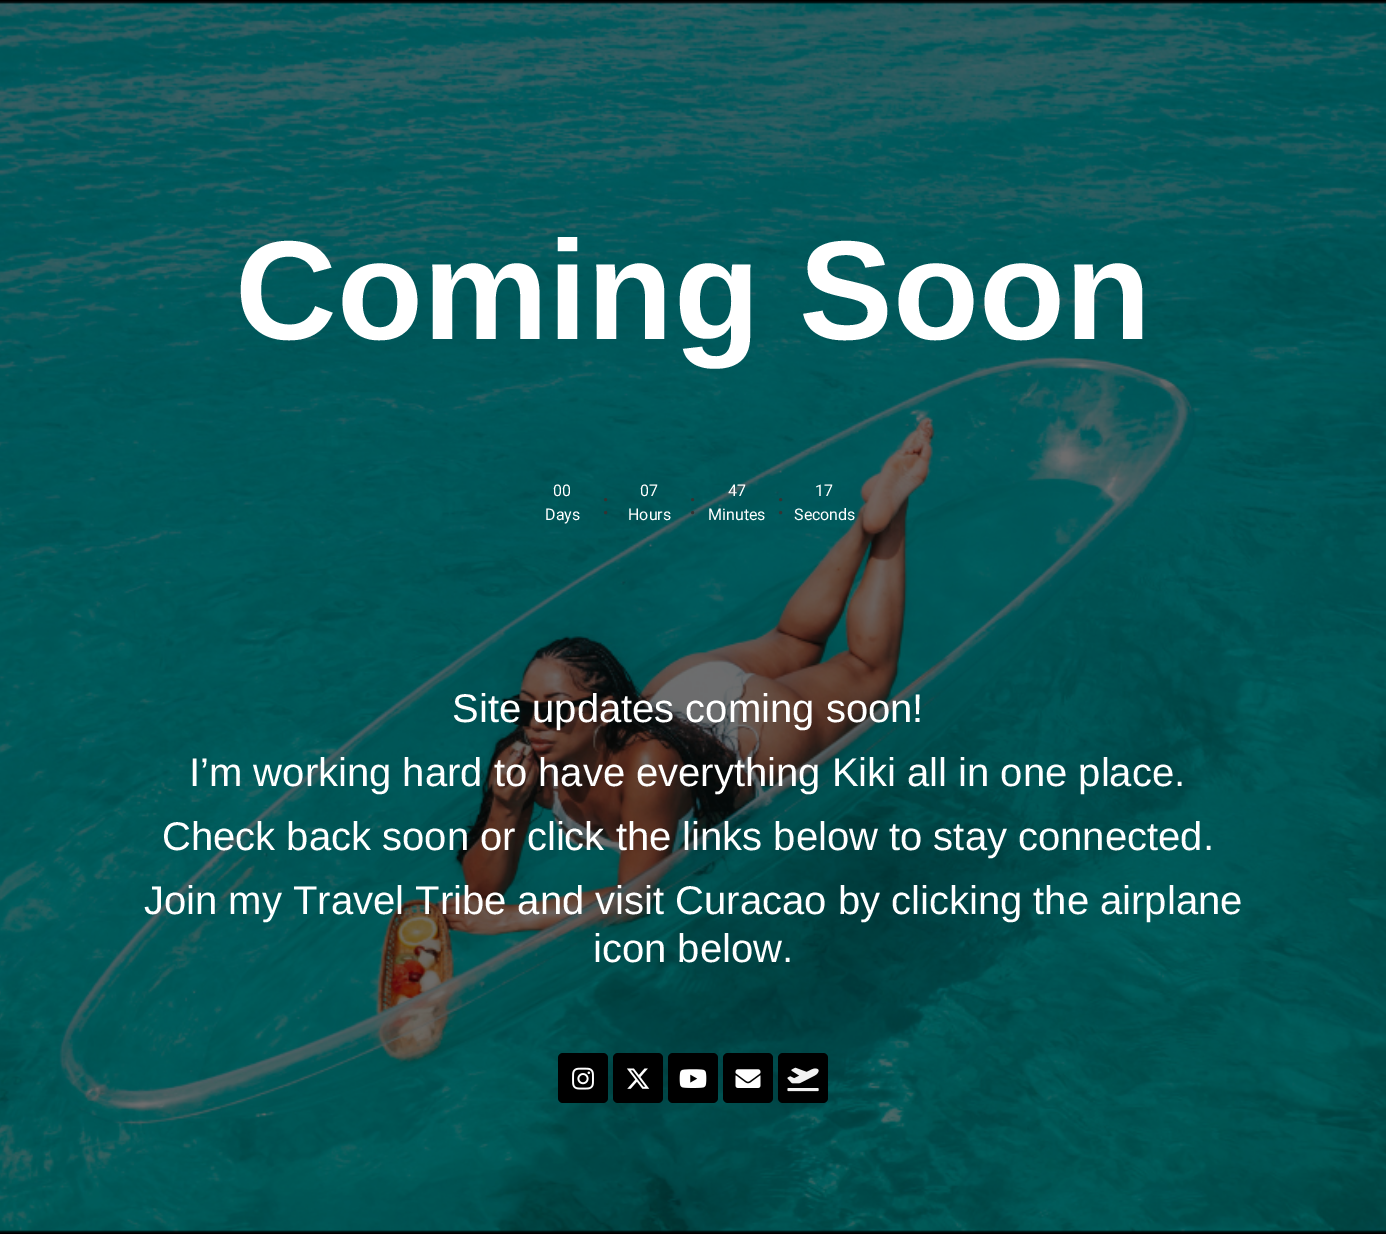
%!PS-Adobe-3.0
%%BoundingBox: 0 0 1386 1234
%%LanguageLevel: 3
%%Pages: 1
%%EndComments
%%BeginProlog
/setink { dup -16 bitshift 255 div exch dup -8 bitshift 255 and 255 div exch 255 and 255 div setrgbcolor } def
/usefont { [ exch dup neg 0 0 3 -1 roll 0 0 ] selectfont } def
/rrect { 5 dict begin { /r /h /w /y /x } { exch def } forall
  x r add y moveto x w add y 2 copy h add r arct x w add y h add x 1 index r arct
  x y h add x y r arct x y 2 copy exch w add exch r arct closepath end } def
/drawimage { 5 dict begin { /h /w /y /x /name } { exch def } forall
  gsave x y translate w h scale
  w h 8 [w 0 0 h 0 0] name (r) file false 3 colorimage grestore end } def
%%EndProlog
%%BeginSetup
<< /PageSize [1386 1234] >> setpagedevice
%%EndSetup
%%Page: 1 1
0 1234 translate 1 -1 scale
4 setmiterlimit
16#FFFFFF setink
0 0 1386 1234 rectfill
(img1.raw) 0 0 1386 1234 drawimage
/LiberationSans-Bold 141 usefont
235 339 moveto (Coming Soon) show
/Roboto-Regular 16 usefont
553 496 moveto (00) show
545 520 moveto (Days) show
/Roboto-Regular 30 usefont
16#333333 setink
602 514 moveto (:) show
/Roboto-Regular 16 usefont
16#FFFFFF setink
640 496 moveto (07) show
628 520 moveto (Hours) show
/Roboto-Regular 30 usefont
16#333333 setink
689 514 moveto (:) show
/Roboto-Regular 16 usefont
16#FFFFFF setink
728 496 moveto (47) show
708 520 moveto (Minutes) show
/Roboto-Regular 30 usefont
16#333333 setink
777 514 moveto (:) show
/Roboto-Regular 16 usefont
16#FFFFFF setink
815 496 moveto (17) show
794 520 moveto (Seconds) show
/LiberationSans-Regular 40 usefont
[
    [(Site updates coming soon!) 452 722]
    [(I’m working hard to have everything Kiki all in one place.) 189 786]
    [(Check back soon or click the links below to stay connected.) 162 850]
    [(Join my Travel Tribe and visit Curacao by clicking the airplane) 144 914]
    [(icon below.) 593 962]
] { aload pop moveto show } forall
16#000000 setink
558 1053 50 50 5 rrect fill
(img2.raw) 572 1067 22 23 drawimage
613 1053 50 50 5 rrect fill
(img3.raw) 627 1068 23 21 drawimage
668 1053 50 50 5 rrect fill
(img4.raw) 679 1069 28 19 drawimage
723 1053 50 50 5 rrect fill
(img5.raw) 735 1069 26 19 drawimage
778 1053 50 50 5 rrect fill
(img6.raw) 787 1067 32 25 drawimage
showpage
%%EOF
